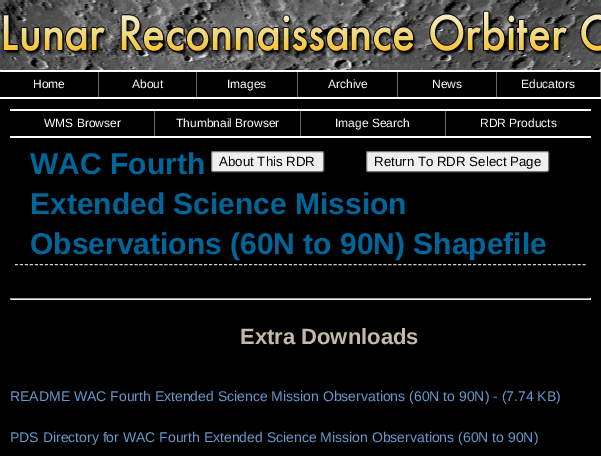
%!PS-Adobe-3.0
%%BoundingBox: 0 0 601 456
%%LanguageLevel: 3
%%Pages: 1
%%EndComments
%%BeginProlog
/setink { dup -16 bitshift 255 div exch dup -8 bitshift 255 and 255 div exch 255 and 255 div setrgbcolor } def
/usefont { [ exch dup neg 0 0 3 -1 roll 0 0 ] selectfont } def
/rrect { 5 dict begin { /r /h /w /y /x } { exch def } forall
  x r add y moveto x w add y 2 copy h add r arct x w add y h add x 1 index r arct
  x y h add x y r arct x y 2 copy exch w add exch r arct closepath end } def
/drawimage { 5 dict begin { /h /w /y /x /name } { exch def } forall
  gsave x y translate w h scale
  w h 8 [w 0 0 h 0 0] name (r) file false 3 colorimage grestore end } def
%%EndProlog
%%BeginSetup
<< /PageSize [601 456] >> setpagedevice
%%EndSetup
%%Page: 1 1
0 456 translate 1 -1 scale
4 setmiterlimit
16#000000 setink
0 0 601 456 rectfill
(img1.raw) 0 0 601 70 drawimage
(img2.raw) 2 10 599 46 drawimage
[
    [0 70 601 2 16#FFFFFF]
    [0 97 601 2 16#FFFFFF]
    [98 72 1 25 16#666666]
] { aload pop setink rectfill } forall
/LiberationSans-Regular 12 usefont
16#FFFFFF setink
33 88 moveto (Home) show
16#666666 setink
196 72 1 25 rectfill
16#FFFFFF setink
132 88 moveto (About) show
16#666666 setink
297 72 1 25 rectfill
16#FFFFFF setink
227 88 moveto (Images) show
16#666666 setink
397 72 1 25 rectfill
16#FFFFFF setink
328 88 moveto (Archive) show
16#666666 setink
496 72 1 25 rectfill
16#FFFFFF setink
432 88 moveto (News) show
16#666666 setink
600 72 1 25 rectfill
16#FFFFFF setink
521 88 moveto (Educators) show
[
    [10 109 581 2 16#FFFFFF]
    [10 136 581 2 16#FFFFFF]
    [154 111 1 25 16#666666]
] { aload pop setink rectfill } forall
16#FFFFFF setink
44 127 moveto (WMS Browser) show
16#666666 setink
300 111 1 25 rectfill
16#FFFFFF setink
176 127 moveto (Thumbnail Browser) show
16#666666 setink
445 111 1 25 rectfill
16#FFFFFF setink
335 127 moveto (Image Search) show
480 127 moveto (RDR Products) show
16#CCCCCC setink
[3 1.98] 0 setdash
15 264.5 moveto 586 264.5 lineto stroke
/LiberationSans-Bold 30 usefont
16#006699 setink
[
    [(WAC Fourth) 30 174]
    [(Extended Science Mission) 30 214]
    [(Observations \(60N to 90N\) Shapefile) 30 254]
] { aload pop moveto show } forall
16#EFEFEF setink
211.5 151.5 112 20 1.5 rrect gsave fill grestore
16#767676 setink
[] 0 setdash
stroke
/LiberationSans-Regular 13.3 usefont
16#000000 setink
219 166 moveto (About This RDR) show
16#EFEFEF setink
366.5 151.5 182 20 1.5 rrect gsave fill grestore
16#767676 setink
stroke
16#000000 setink
374 166 moveto (Return To RDR Select Page) show
[
    [10 298 581 1 16#9F9F9F]
    [590 298 1 2 16#EEEEEE]
    [10 299 581 1 16#EEEEEE]
    [10 298 1 2 16#9F9F9F]
] { aload pop setink rectfill } forall
/LiberationSans-Bold 22 usefont
16#C5BAA9 setink
240 344 moveto (Extra Downloads) show
/LiberationSans-Regular 14 usefont
16#6699CC setink
10 401 moveto (README WAC Fourth Extended Science Mission Observations \(60N to 90N\) - \(7.74 KB\)) show
10 442 moveto (PDS Directory for WAC Fourth Extended Science Mission Observations \(60N to 90N\)) show
showpage
%%EOF
